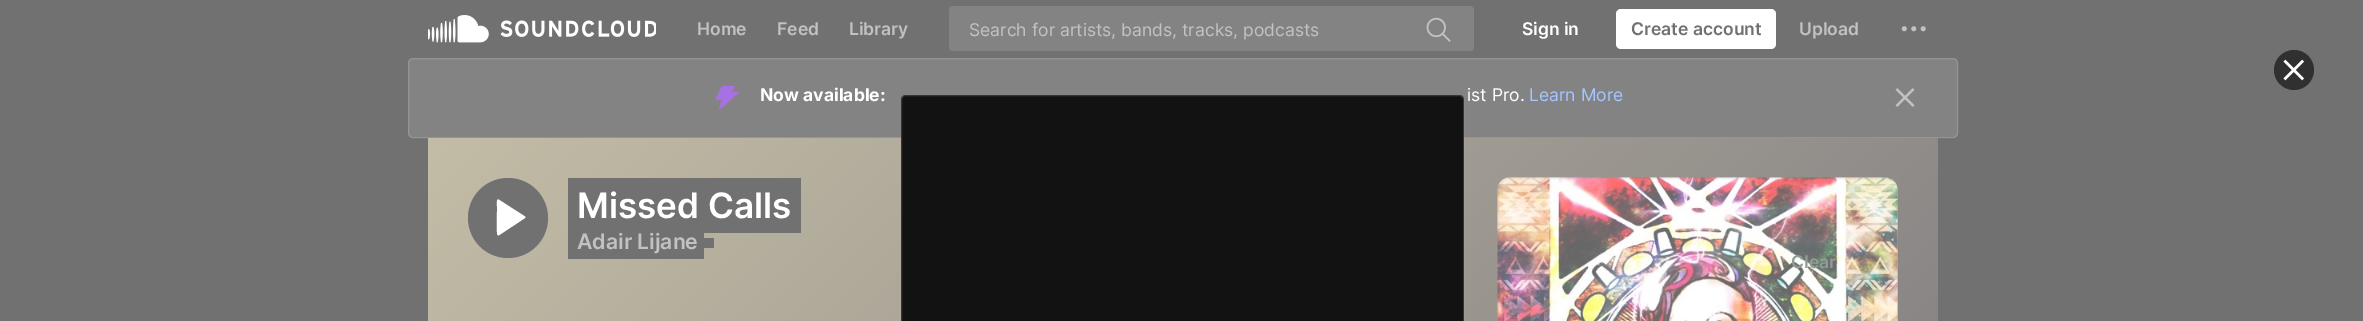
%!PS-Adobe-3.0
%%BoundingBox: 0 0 2363 321
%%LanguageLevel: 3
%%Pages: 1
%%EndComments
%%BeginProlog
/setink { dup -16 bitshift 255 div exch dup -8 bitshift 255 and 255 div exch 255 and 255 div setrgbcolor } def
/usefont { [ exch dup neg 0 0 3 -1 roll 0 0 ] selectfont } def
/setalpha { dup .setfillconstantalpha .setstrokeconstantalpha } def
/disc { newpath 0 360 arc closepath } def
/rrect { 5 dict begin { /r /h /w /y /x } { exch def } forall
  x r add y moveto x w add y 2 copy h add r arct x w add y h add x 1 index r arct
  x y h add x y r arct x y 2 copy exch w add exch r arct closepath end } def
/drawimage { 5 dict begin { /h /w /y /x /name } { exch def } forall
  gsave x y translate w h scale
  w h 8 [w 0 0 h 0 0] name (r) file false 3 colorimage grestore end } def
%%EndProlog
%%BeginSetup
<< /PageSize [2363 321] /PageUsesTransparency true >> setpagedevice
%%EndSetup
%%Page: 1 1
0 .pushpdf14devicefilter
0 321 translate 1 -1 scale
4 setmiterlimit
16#717171 setink
0 0 2363 321 rectfill
(img1.raw) 428 15 228 28 drawimage
/Inter-SemiBold 17.5 usefont
16#C2C2C2 setink
[
    [(Home) 697 35]
    [(Feed) 777 35]
    [(Library) 849 35]
] { aload pop moveto show } forall
16#838383 setink
949 6 525 45 4 rrect fill
/Inter-Regular 17.5 usefont
16#C2C2C2 setink
969 36 moveto (Search for artists, bands, tracks, podcasts) show
(img2.raw) 1426 17 25 25 drawimage
/Inter-SemiBold 17.5 usefont
16#FFFFFF setink
1522 35 moveto (Sign in) show
1616 9 160 40 5 rrect fill
16#717171 setink
1631 35 moveto (Create account) show
16#C2C2C2 setink
1799 35 moveto (Upload) show
(img3.raw) 1901 26 25 6 drawimage
16#838383 setink
408 58 1550 80 5 rrect fill
0.15 setalpha
16#FFFFFF setink
408.5 58.5 1549 79 4.5 rrect stroke
1 setalpha
16#A771E4 setink
722 86 moveto 715 100 lineto 721.5 100 lineto 719 110 lineto 739.5 92 lineto 731.5 92 lineto 735 86 lineto closepath fill
/Inter-Bold 17.5 usefont
16#FFFFFF setink
760 101 moveto (Now available:) show
/Inter-Regular 17.5 usefont
1467 101 moveto (ist Pro.) show
16#A5C5FF setink
1529 101 moveto (Learn More) show
(img4.raw) 1895 88 20 19 drawimage
gsave 428 138 moveto 1938 138 lineto 1938 321 lineto 428 321 lineto closepath clip newpath
<< /ShadingType 2 /ColorSpace /DeviceRGB /Coords [685 -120 1680 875] /Extend [true true] /Function << /FunctionType 2 /Domain [0 1] /C0 [0.765 0.737 0.651] /C1 [0.502 0.49 0.502] /N 1 >> >> shfill grestore
16#717171 setink
508 218 40 disc fill
16#FFFFFF setink
525 216.5 moveto 525.5 217 525.5 217.5 525 218 curveto 498.5 235.5 lineto 497.5 235 lineto 496.5 234.5 497 214.5 497 212 curveto 497 206.5 lineto 497 202.5 496.5 199 498.5 199.5 curveto closepath eofill
16#717171 setink
568 178 233 55 rectfill
/Inter-SemiBold 35 usefont
16#FFFFFF setink
577 218 moveto (Missed Calls) show
16#717171 setink
568 233 136 26 rectfill
/Inter-SemiBold 21.25 usefont
16#C2C2C2 setink
577 249 moveto (Adair Lijane) show
16#717171 setink
704 238 10 10 rectfill
gsave 1498 178 400 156 13 rrect clip newpath
<< /ShadingType 2 /ColorSpace /DeviceRGB /Coords [1498 178 1898 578] /Extend [true true] /Function << /FunctionType 2 /Domain [0 1] /C0 [0.71 0.627 0.663] /C1 [0.663 0.745 0.769] /N 1 >> >> shfill grestore
(img5.raw) 1497 177 401 144 drawimage
0.1 setalpha
1498.5 178.5 399 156 12.5 rrect stroke
/Inter-SemiBold 17.5 usefont
1 setalpha
16#939B95 setink
1791 268 moveto (Clear) show
16#303030 setink
2294 70 20 disc fill
(img6.raw) 2283 59 21 22 drawimage
16#121212 setink
906 95 moveto 1459 95 lineto 1462 95 1464 97 1464 100 curveto 1464 321 lineto 901 321 lineto 901 100 lineto 901 97 903 95 906 95 curveto closepath fill
0.15 setalpha
16#FFFFFF setink
901.5 95.5 562 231 4.5 rrect stroke
.poppdf14devicefilter showpage
%%EOF
